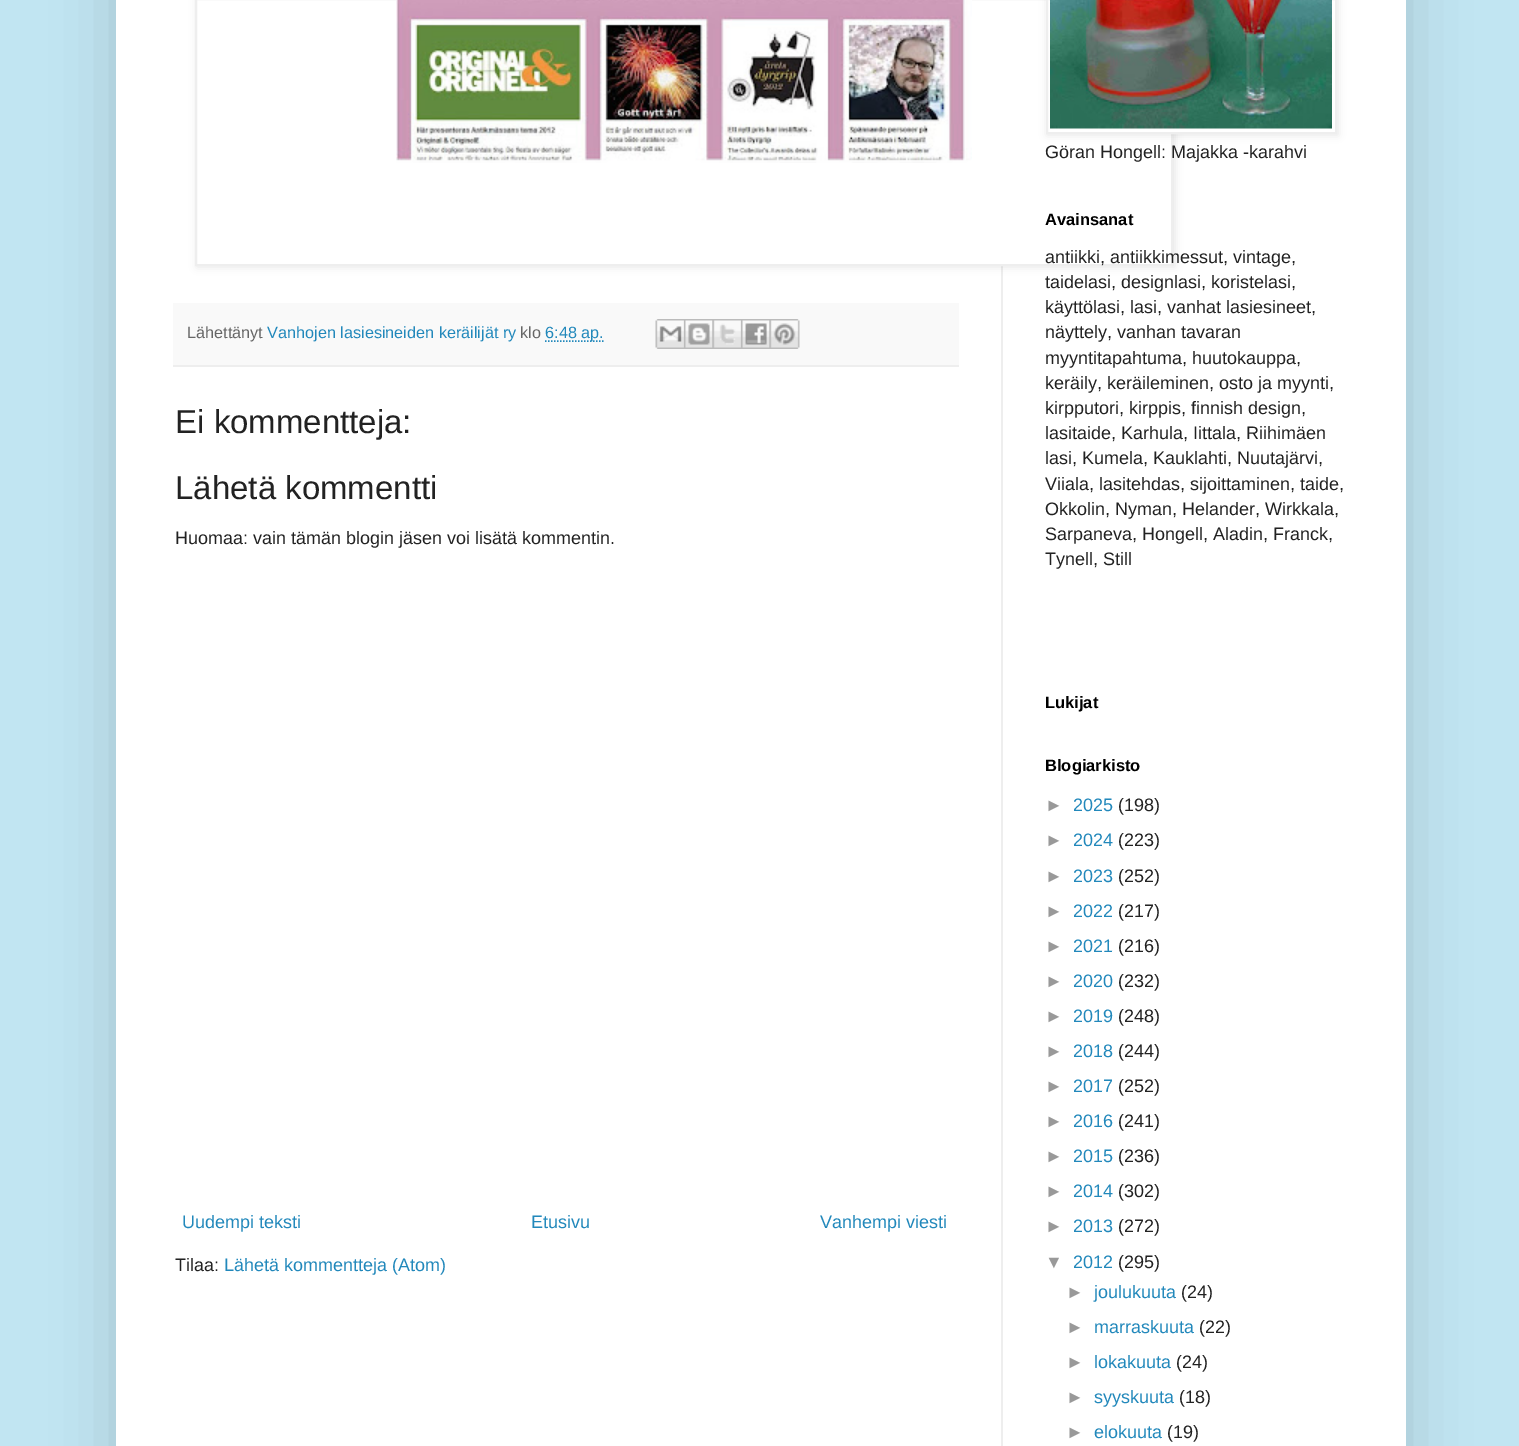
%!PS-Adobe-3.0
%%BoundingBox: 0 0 1519 1446
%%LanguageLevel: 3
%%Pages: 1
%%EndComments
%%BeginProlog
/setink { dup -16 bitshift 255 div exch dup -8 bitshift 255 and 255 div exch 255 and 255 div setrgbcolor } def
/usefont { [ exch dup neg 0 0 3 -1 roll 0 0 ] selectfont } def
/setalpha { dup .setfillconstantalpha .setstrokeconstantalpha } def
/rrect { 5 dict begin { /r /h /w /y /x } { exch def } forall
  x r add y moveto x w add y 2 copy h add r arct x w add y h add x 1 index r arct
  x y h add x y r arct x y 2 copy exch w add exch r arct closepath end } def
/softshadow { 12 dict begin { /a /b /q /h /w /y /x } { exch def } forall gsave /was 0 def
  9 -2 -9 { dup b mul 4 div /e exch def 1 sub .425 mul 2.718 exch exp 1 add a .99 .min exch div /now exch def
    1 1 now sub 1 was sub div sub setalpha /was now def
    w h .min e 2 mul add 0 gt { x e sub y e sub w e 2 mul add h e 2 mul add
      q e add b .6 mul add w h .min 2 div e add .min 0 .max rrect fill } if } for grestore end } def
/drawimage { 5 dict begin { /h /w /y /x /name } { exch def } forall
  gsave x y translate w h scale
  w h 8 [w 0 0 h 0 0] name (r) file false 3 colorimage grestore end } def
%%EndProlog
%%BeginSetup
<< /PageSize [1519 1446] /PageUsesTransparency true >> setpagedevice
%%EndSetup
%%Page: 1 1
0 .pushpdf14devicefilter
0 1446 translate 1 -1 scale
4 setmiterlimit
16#C1E5F2 setink
0 0 1519 1446 rectfill
16#000000 setink
116 -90 1290 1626 0 30 0.15 softshadow
16#FFFFFF setink
116 0 1290 1446 rectfill
16#EEEEEE setink
1001 266 2 1180 rectfill
16#000000 setink
197 -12 978 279 0 4 0.1 softshadow
16#FFFFFF setink
196 -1 moveto 1172 -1 lineto 1172 265 lineto 196 265 lineto closepath gsave fill grestore
16#EEEEEE setink
2 setlinewidth
stroke
(img1.raw) 396 0 576 163 drawimage
16#F9F9F9 setink
173 303 786 62 rectfill
16#EEEEEE setink
173 365 786 2 rectfill
/LiberationSans-Regular 16.25 usefont
16#666666 setink
187 338 moveto (Lähettänyt) show
16#2288BB setink
267 338 moveto (Vanhojen lasiesineiden keräilijät ry) show
16#666666 setink
520 338 moveto (klo) show
16#2288BB setink
1.5 setlinewidth
[1.5 1.5] 0 setdash
545 341 moveto 603.5 341 lineto stroke
545 338 moveto (6:48 ap.) show
(img2.raw) 655 319 29 30 drawimage
(img3.raw) 684 319 29 30 drawimage
(img4.raw) 712 319 29 30 drawimage
(img5.raw) 741 319 29 30 drawimage
(img6.raw) 769 319 31 30 drawimage
/LiberationSans-Regular 33 usefont
16#222222 setink
175 433 moveto (Ei kommentteja:) show
175 499 moveto (Lähetä kommentti) show
/LiberationSans-Regular 18 usefont
175 544 moveto (Huomaa: vain tämän blogin jäsen voi lisätä kommentin.) show
16#2288BB setink
[
    [(Uudempi teksti) 182 1228]
    [(Etusivu) 531 1228]
    [(Vanhempi viesti) 820 1228]
] { aload pop moveto show } forall
16#222222 setink
175 1271 moveto (Tilaa:) show
16#2288BB setink
224 1271 moveto (Lähetä kommentteja \(Atom\)) show
16#000000 setink
1047 -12 291 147 0 4 0.1 softshadow
16#FFFFFF setink
1047 -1 moveto 1336 -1 lineto 1336 133 lineto 1047 133 lineto closepath gsave fill grestore
16#EEEEEE setink
2 setlinewidth
[] 0 setdash
stroke
(img7.raw) 1050 0 282 129 drawimage
16#222222 setink
1045 158 moveto (Göran Hongell: Majakka -karahvi) show
/LiberationSans-Bold 16.5 usefont
16#000000 setink
1045 225 moveto (Avainsanat) show
/LiberationSans-Regular 18 usefont
16#222222 setink
[
    [(antiikki, antiikkimessut, vintage,) 1045 263]
    [(taidelasi, designlasi, koristelasi,) 1045 288]
    [(käyttölasi, lasi, vanhat lasiesineet,) 1045 313]
    [(näyttely, vanhan tavaran) 1045 338]
    [(myyntitapahtuma, huutokauppa,) 1045 364]
    [(keräily, keräileminen, osto ja myynti,) 1045 389]
    [(kirpputori, kirppis, finnish design,) 1045 414]
    [(lasitaide, Karhula, Iittala, Riihimäen) 1045 439]
    [(lasi, Kumela, Kauklahti, Nuutajärvi,) 1045 464]
    [(Viiala, lasitehdas, sijoittaminen, taide,) 1045 490]
    [(Okkolin, Nyman, Helander, Wirkkala,) 1045 515]
    [(Sarpaneva, Hongell, Aladin, Franck,) 1045 540]
    [(Tynell, Still) 1045 565]
] { aload pop moveto show } forall
/LiberationSans-Bold 16.5 usefont
16#000000 setink
1045 708 moveto (Lukijat) show
1045 771 moveto (Blogiarkisto) show
/LiberationSans-Regular 18 usefont
16#999999 setink
1045 811 moveto (►) show
16#2288BB setink
1073 811 moveto (2025) show
16#222222 setink
1118 811 moveto (\(198\)) show
16#999999 setink
1045 846 moveto (►) show
16#2288BB setink
1073 846 moveto (2024) show
16#222222 setink
1118 846 moveto (\(223\)) show
16#999999 setink
1045 882 moveto (►) show
16#2288BB setink
1073 882 moveto (2023) show
16#222222 setink
1118 882 moveto (\(252\)) show
16#999999 setink
1045 917 moveto (►) show
16#2288BB setink
1073 917 moveto (2022) show
16#222222 setink
1118 917 moveto (\(217\)) show
16#999999 setink
1045 952 moveto (►) show
16#2288BB setink
1073 952 moveto (2021) show
16#222222 setink
1118 952 moveto (\(216\)) show
16#999999 setink
1045 987 moveto (►) show
16#2288BB setink
1073 987 moveto (2020) show
16#222222 setink
1118 987 moveto (\(232\)) show
16#999999 setink
1045 1022 moveto (►) show
16#2288BB setink
1073 1022 moveto (2019) show
16#222222 setink
1118 1022 moveto (\(248\)) show
16#999999 setink
1045 1057 moveto (►) show
16#2288BB setink
1073 1057 moveto (2018) show
16#222222 setink
1118 1057 moveto (\(244\)) show
16#999999 setink
1045 1092 moveto (►) show
16#2288BB setink
1073 1092 moveto (2017) show
16#222222 setink
1118 1092 moveto (\(252\)) show
16#999999 setink
1045 1127 moveto (►) show
16#2288BB setink
1073 1127 moveto (2016) show
16#222222 setink
1118 1127 moveto (\(241\)) show
16#999999 setink
1045 1162 moveto (►) show
16#2288BB setink
1073 1162 moveto (2015) show
16#222222 setink
1118 1162 moveto (\(236\)) show
16#999999 setink
1045 1197 moveto (►) show
16#2288BB setink
1073 1197 moveto (2014) show
16#222222 setink
1118 1197 moveto (\(302\)) show
16#999999 setink
1045 1232 moveto (►) show
16#2288BB setink
1073 1232 moveto (2013) show
16#222222 setink
1118 1232 moveto (\(272\)) show
16#999999 setink
1045 1268 moveto (▼) show
16#2288BB setink
1073 1268 moveto (2012) show
16#222222 setink
1118 1268 moveto (\(295\)) show
16#999999 setink
1066 1298 moveto (►) show
16#2288BB setink
1094 1298 moveto (joulukuuta) show
16#222222 setink
1181 1298 moveto (\(24\)) show
16#999999 setink
1066 1333 moveto (►) show
16#2288BB setink
1094 1333 moveto (marraskuuta) show
16#222222 setink
1199 1333 moveto (\(22\)) show
16#999999 setink
1066 1368 moveto (►) show
16#2288BB setink
1094 1368 moveto (lokakuuta) show
16#222222 setink
1176 1368 moveto (\(24\)) show
16#999999 setink
1066 1403 moveto (►) show
16#2288BB setink
1094 1403 moveto (syyskuuta) show
16#222222 setink
1179 1403 moveto (\(18\)) show
16#999999 setink
1066 1438 moveto (►) show
16#2288BB setink
1094 1438 moveto (elokuuta) show
16#222222 setink
1167 1438 moveto (\(19\)) show
.poppdf14devicefilter showpage
%%EOF
